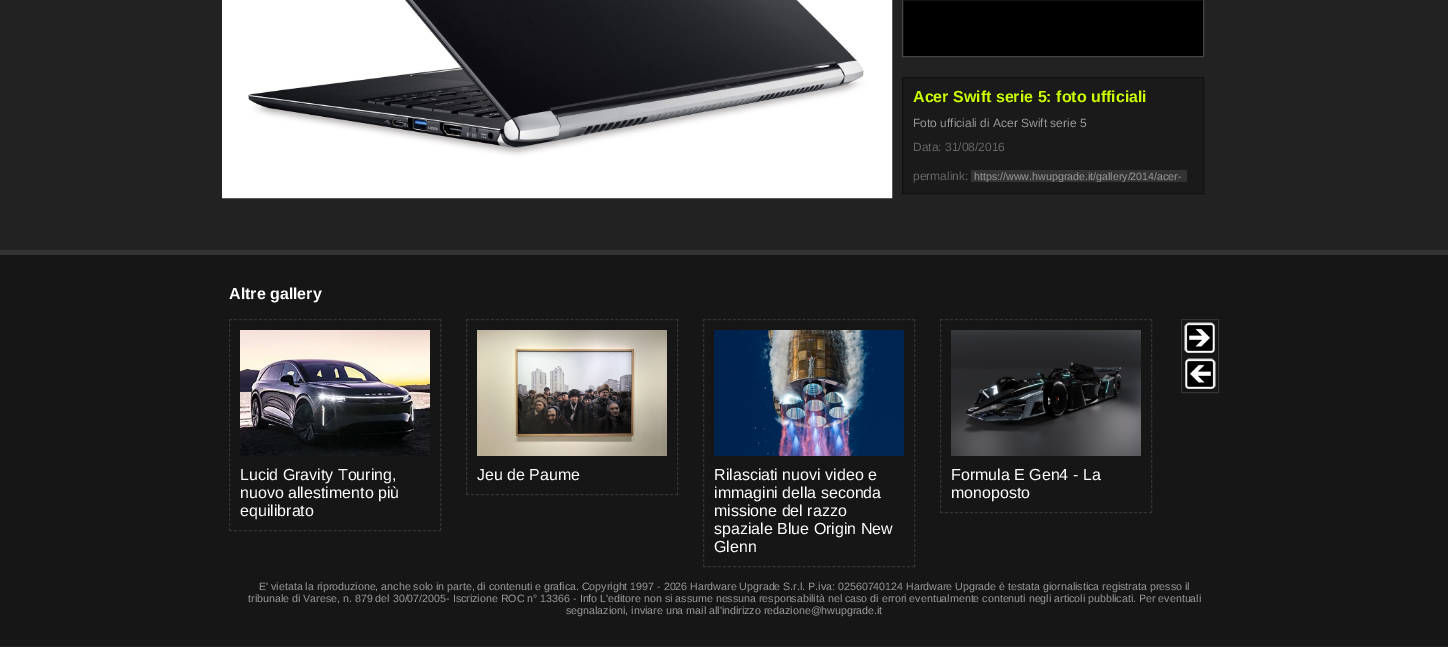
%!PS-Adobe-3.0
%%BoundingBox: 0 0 1448 647
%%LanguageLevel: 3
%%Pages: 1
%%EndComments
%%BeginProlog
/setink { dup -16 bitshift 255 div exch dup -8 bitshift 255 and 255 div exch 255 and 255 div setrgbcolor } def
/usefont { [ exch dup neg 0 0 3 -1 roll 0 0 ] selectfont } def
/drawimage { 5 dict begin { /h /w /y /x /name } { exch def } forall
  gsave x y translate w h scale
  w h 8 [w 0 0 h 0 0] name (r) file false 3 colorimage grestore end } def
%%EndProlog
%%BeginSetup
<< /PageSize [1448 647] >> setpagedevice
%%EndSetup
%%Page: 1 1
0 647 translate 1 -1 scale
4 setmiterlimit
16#222222 setink
0 0 1448 647 rectfill
16#FFFFFF setink
10 setlinewidth
227 -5 660 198 rectstroke
(img1.raw) 232 0 650 188 drawimage
16#000000 setink
902.5 -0.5 moveto 1203.5 -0.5 lineto 1203.5 56.5 lineto 902.5 56.5 lineto closepath gsave fill grestore
16#444444 setink
1 setlinewidth
stroke
16#1A1A1A setink
902.5 77.5 moveto 1203.5 77.5 lineto 1203.5 193.5 lineto 902.5 193.5 lineto closepath gsave fill grestore
16#111111 setink
stroke
/LiberationSans-Bold 16 usefont
16#CCFF00 setink
913 102 moveto (Acer Swift serie 5: foto ufficiali) show
/LiberationSans-Regular 12 usefont
16#999999 setink
913 127 moveto (Foto ufficiali di Acer Swift serie 5) show
16#666666 setink
913 151 moveto (Data: 31/08/2016) show
913 180 moveto (permalink:) show
16#333333 setink
971 170 216 12 rectfill
gsave
974 170 210 12 rectclip
/LiberationSans-Regular 10.67 usefont
16#999999 setink
974 180 moveto (https://www.hwupgrade.it/gallery/2014/acer-) show
grestore
16#161616 setink
0 255 1448 391 rectfill
16#333333 setink
0 250 1448 5 rectfill
/LiberationSans-Bold 16 usefont
16#FFFFFF setink
229 299 moveto (Altre gallery) show
16#333333 setink
1181.5 319.5 37 73 rectstroke
(img2.raw) 1184 322 31 31 drawimage
(img3.raw) 1185 358 31 31 drawimage
[3 1.98] 0 setdash
229 319.5 moveto 441 319.5 lineto stroke
440.5 319 moveto 440.5 531 lineto stroke
229 530.5 moveto 441 530.5 lineto stroke
229.5 319 moveto 229.5 531 lineto stroke
(img4.raw) 240 330 190 126 drawimage
/LiberationSans-Regular 16 usefont
16#FFFFFF setink
[
    [(Lucid Gravity Touring,) 240 480]
    [(nuovo allestimento più) 240 498]
    [(equilibrato) 240 516]
] { aload pop moveto show } forall
16#333333 setink
466 319.5 moveto 678 319.5 lineto stroke
[3 1.94] 0 setdash
677.5 319 moveto 677.5 495 lineto stroke
[3 1.98] 0 setdash
466 494.5 moveto 678 494.5 lineto stroke
[3 1.94] 0 setdash
466.5 319 moveto 466.5 495 lineto stroke
(img5.raw) 477 330 190 126 drawimage
16#FFFFFF setink
477 480 moveto (Jeu de Paume) show
16#333333 setink
[3 1.98] 0 setdash
703 319.5 moveto 915 319.5 lineto stroke
[3 2] 0 setdash
914.5 319 moveto 914.5 567 lineto stroke
[3 1.98] 0 setdash
703 566.5 moveto 915 566.5 lineto stroke
[3 2] 0 setdash
703.5 319 moveto 703.5 567 lineto stroke
(img6.raw) 714 330 190 126 drawimage
16#FFFFFF setink
[
    [(Rilasciati nuovi video e) 714 480]
    [(immagini della seconda) 714 498]
    [(missione del razzo) 714 516]
    [(spaziale Blue Origin New) 714 534]
    [(Glenn) 714 552]
] { aload pop moveto show } forall
16#333333 setink
[3 1.98] 0 setdash
940 319.5 moveto 1152 319.5 lineto stroke
[3 2.03] 0 setdash
1151.5 319 moveto 1151.5 513 lineto stroke
[3 1.98] 0 setdash
940 512.5 moveto 1152 512.5 lineto stroke
[3 2.03] 0 setdash
940.5 319 moveto 940.5 513 lineto stroke
(img7.raw) 951 330 190 126 drawimage
16#FFFFFF setink
951 480 moveto (Formula E Gen4 - La) show
951 498 moveto (monoposto) show
/LiberationSans-Regular 10.67 usefont
16#999999 setink
[
    [(E' vietata la riproduzione, anche solo in parte, di contenuti e grafica. Copyright 1997 - 2026 Hardware Upgrade S.r.l. P.iva: 02560740124 Hardware Upgrade è testata giornalistica registrata presso il) 259 590]
    [(tribunale di Varese, n. 879 del 30/07/2005- Iscrizione ROC n° 13366 - Info L'editore non si assume nessuna responsabilità nel caso di errori eventualmente contenuti negli articoli pubblicati. Per eventuali) 248 602]
    [(segnalazioni, inviare una mail all'indirizzo redazione@hwupgrade.it) 566 614]
] { aload pop moveto show } forall
showpage
%%EOF
